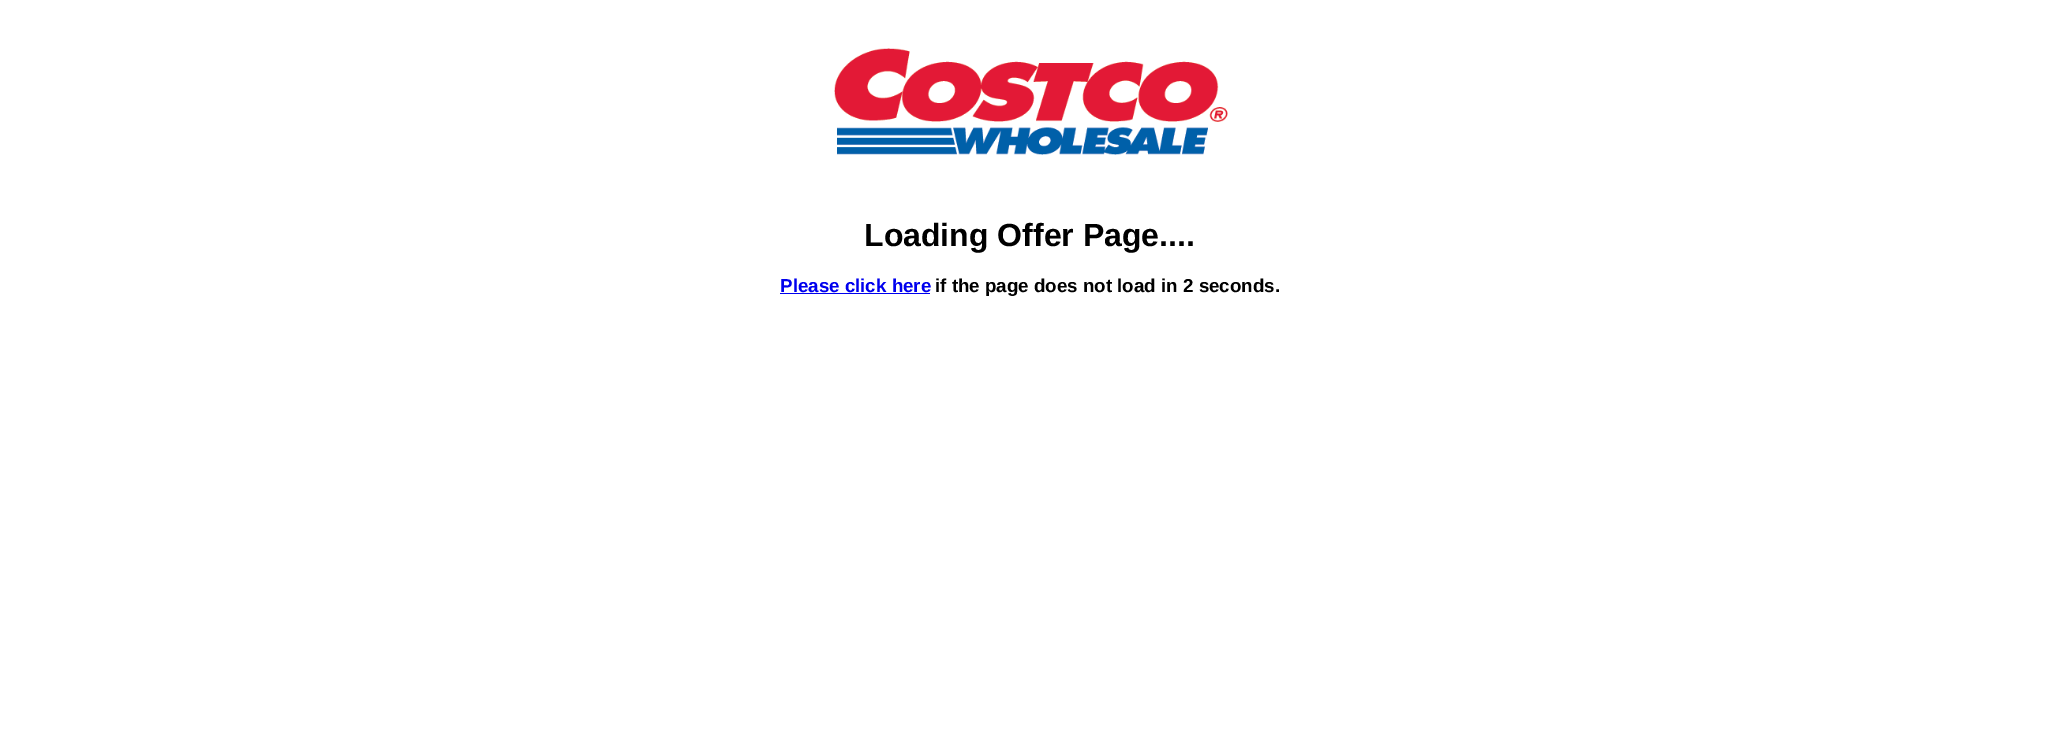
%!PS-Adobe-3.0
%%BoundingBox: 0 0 2059 739
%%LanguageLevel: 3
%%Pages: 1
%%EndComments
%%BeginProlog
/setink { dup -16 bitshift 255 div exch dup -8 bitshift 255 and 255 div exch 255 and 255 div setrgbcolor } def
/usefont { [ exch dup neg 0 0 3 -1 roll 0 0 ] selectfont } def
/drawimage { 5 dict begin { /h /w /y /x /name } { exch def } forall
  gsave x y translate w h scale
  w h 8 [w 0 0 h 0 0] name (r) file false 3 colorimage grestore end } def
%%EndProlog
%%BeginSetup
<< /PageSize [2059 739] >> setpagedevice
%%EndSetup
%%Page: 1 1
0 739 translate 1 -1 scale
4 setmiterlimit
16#FFFFFF setink
0 0 2059 739 rectfill
(img1.raw) 834 48 394 107 drawimage
/LiberationSans-Bold 32 usefont
16#000000 setink
864 246 moveto (Loading Offer Page....) show
/LiberationSans-Bold 18.75 usefont
16#0000EE setink
780 292 moveto (Please click here) show
780 293 150 1 rectfill
16#000000 setink
935 292 moveto (if the page does not load in 2 seconds.) show
showpage
%%EOF
